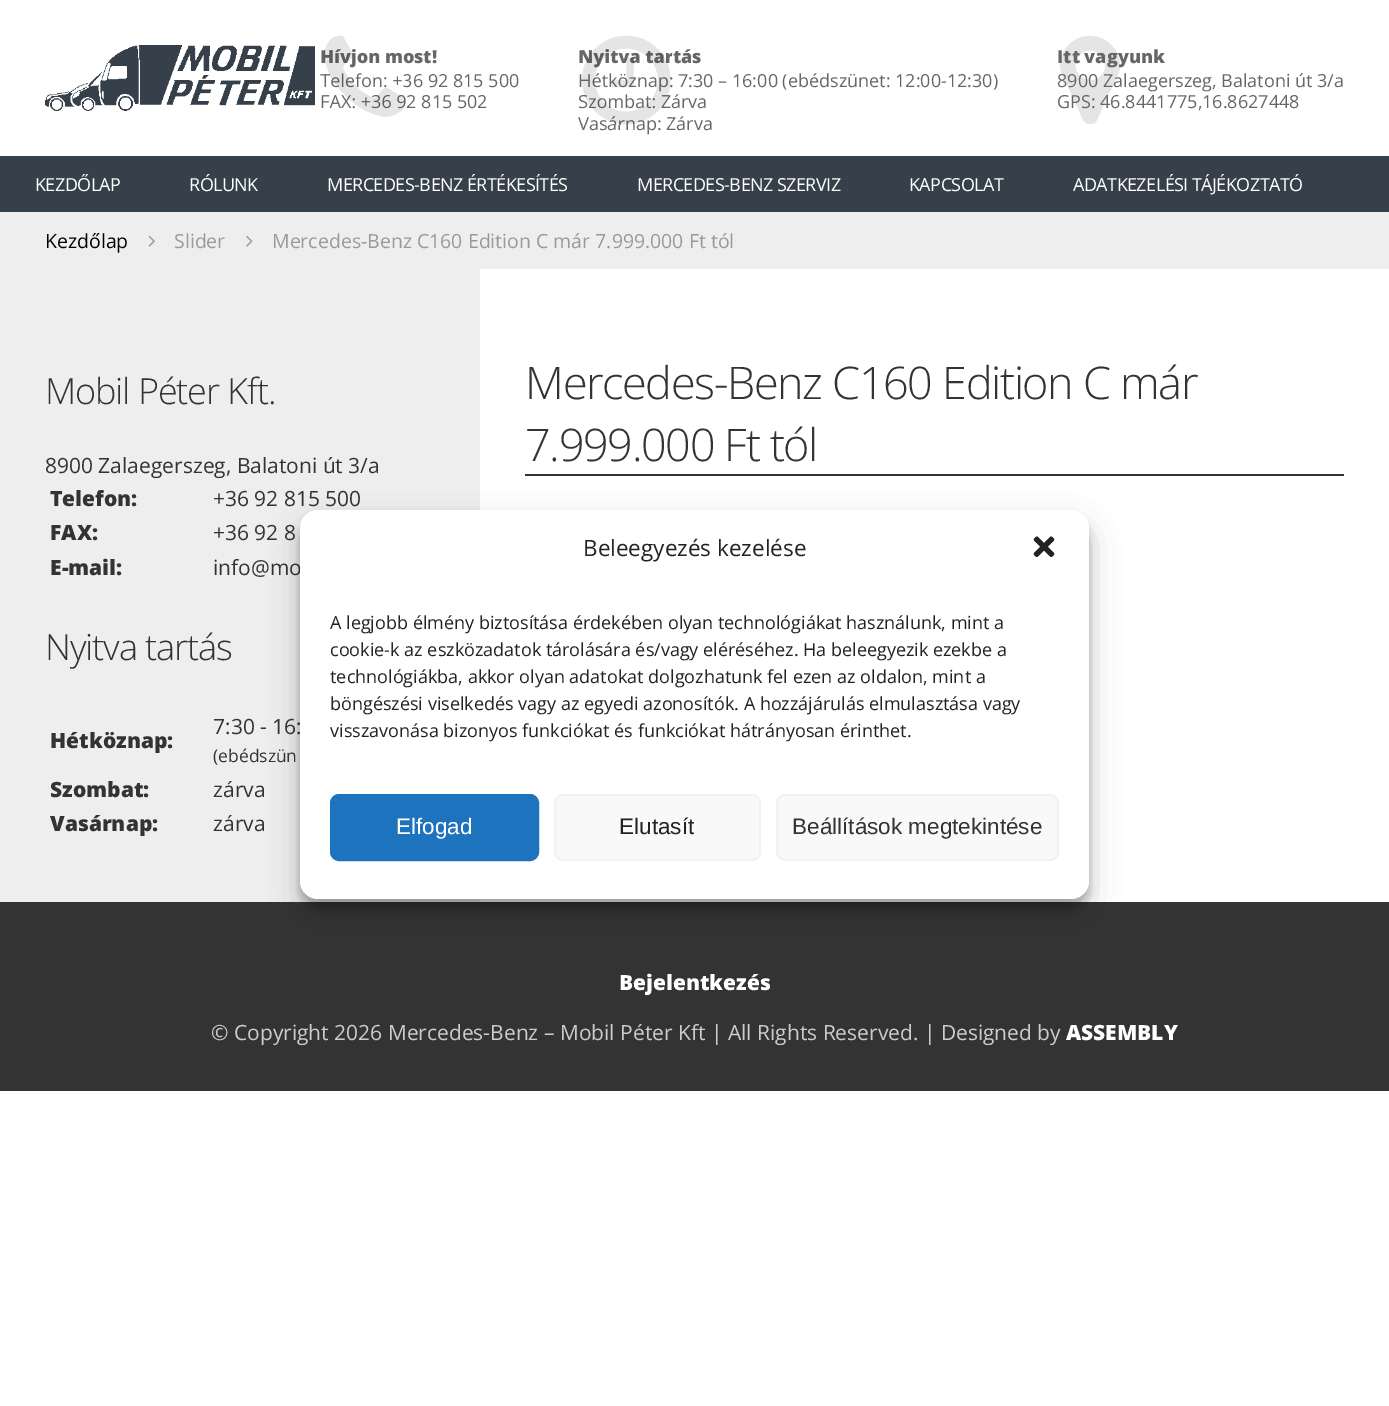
%!PS-Adobe-3.0
%%BoundingBox: 0 0 1389 1406
%%LanguageLevel: 3
%%Pages: 1
%%EndComments
%%BeginProlog
/setink { dup -16 bitshift 255 div exch dup -8 bitshift 255 and 255 div exch 255 and 255 div setrgbcolor } def
/usefont { [ exch dup neg 0 0 3 -1 roll 0 0 ] selectfont } def
/setalpha { dup .setfillconstantalpha .setstrokeconstantalpha } def
/rrect { 5 dict begin { /r /h /w /y /x } { exch def } forall
  x r add y moveto x w add y 2 copy h add r arct x w add y h add x 1 index r arct
  x y h add x y r arct x y 2 copy exch w add exch r arct closepath end } def
/softshadow { 12 dict begin { /a /b /q /h /w /y /x } { exch def } forall gsave /was 0 def
  9 -2 -9 { dup b mul 4 div /e exch def 1 sub .425 mul 2.718 exch exp 1 add a .99 .min exch div /now exch def
    1 1 now sub 1 was sub div sub setalpha /was now def
    w h .min e 2 mul add 0 gt { x e sub y e sub w e 2 mul add h e 2 mul add
      q e add b .6 mul add w h .min 2 div e add .min 0 .max rrect fill } if } for grestore end } def
/drawimage { 5 dict begin { /h /w /y /x /name } { exch def } forall
  gsave x y translate w h scale
  w h 8 [w 0 0 h 0 0] name (r) file false 3 colorimage grestore end } def
%%EndProlog
%%BeginSetup
<< /PageSize [1389 1406] /PageUsesTransparency true >> setpagedevice
%%EndSetup
%%Page: 1 1
0 .pushpdf14devicefilter
0 1406 translate 1 -1 scale
4 setmiterlimit
16#FFFFFF setink
0 0 1389 1406 rectfill
(img1.raw) 45 45 270 66 drawimage
/OpenSans-ExtraBold 18 usefont
16#666666 setink
320 63 moveto (Hívjon most!) show
/OpenSans-Regular 18 usefont
320 87 moveto (Telefon: +36 92 815 500) show
320 108 moveto (FAX: +36 92 815 502) show
(img2.raw) 324 35 82 82 drawimage
/OpenSans-ExtraBold 18 usefont
578 63 moveto (Nyitva tartás) show
/OpenSans-Regular 18 usefont
[
    [(Hétköznap: 7:30 – 16:00 \(ebédszünet: 12:00-12:30\)) 578 87]
    [(Szombat: Zárva) 578 108]
    [(Vasárnap: Zárva) 578 130]
] { aload pop moveto show } forall
(img3.raw) 582 35 89 90 drawimage
0.1 setalpha
16#000000 setink
1101 76 moveto 1114 62 1093 41 1080 55 curveto 1066 69 1087 89 1101 76 curveto closepath 1120 65 moveto 1120 72 1117 77 1114 83 curveto 1096 122 lineto 1095 123 1093 124 1091 124 curveto 1084 125 1082 118 1080 113 curveto 1066 83 lineto 1063 77 1060 72 1060 65 curveto 1061 38 1095 25 1113 47 curveto 1117 52 1120 58 1120 65 curveto closepath fill
/OpenSans-ExtraBold 18 usefont
1 setalpha
16#666666 setink
1057 63 moveto (Itt vagyunk) show
/OpenSans-Regular 18 usefont
1057 87 moveto (8900 Zalaegerszeg, Balatoni út 3/a) show
1057 108 moveto (GPS: 46.8441775,16.8627448) show
16#36404A setink
0 156 1389 56 rectfill
16#FFFFFF setink
35 191 moveto -0.55 0 (KEZDŐLAP) ashow
189 191 moveto -0.55 0 (RÓLUNK) ashow
327 191 moveto -0.55 0 (MERCEDES-BENZ ÉRTÉKESÍTÉS) ashow
637 191 moveto -0.55 0 (MERCEDES-BENZ SZERVIZ) ashow
909 191 moveto -0.55 0 (KAPCSOLAT) ashow
1073 191 moveto -0.55 0 (ADATKEZELÉSI TÁJÉKOZTATÓ) ashow
16#EEEEEE setink
0 212 1389 57 rectfill
/OpenSans-Regular 19.5 usefont
16#000000 setink
45 248 moveto (Kezdőlap) show
(img4.raw) 148 235 7 12 drawimage
16#999999 setink
174 248 moveto (Slider) show
(img5.raw) 246 235 7 12 drawimage
272 248 moveto (Mercedes-Benz C160 Edition C már 7.999.000 Ft tól) show
16#EEEEEE setink
0 269 480 633 rectfill
/OpenSans-Light 36 usefont
16#333333 setink
45 404 moveto -1.1 0 (Mobil Péter Kft.) ashow
/OpenSans-Regular 21 usefont
45 473 moveto (8900 Zalaegerszeg, Balatoni út 3/a) show
/OpenSans-ExtraBold 21 usefont
50 506 moveto (Telefon:) show
/OpenSans-Regular 21 usefont
213 506 moveto (+36 92 815 500) show
/OpenSans-ExtraBold 21 usefont
50 540 moveto (FAX:) show
/OpenSans-Regular 21 usefont
213 540 moveto (+36 92 8) show
/OpenSans-ExtraBold 21 usefont
50 575 moveto (E-mail:) show
/OpenSans-Regular 21 usefont
213 575 moveto (info@mo) show
/OpenSans-Light 36 usefont
45 660 moveto -1.1 0 (Nyitva tartás) ashow
/OpenSans-ExtraBold 21 usefont
50 748 moveto (Hétköznap:) show
/OpenSans-Regular 21 usefont
213 734 moveto (7:30 - 16:) show
/OpenSans-Regular 17.5 usefont
213 762 moveto (\(ebédszün) show
/OpenSans-ExtraBold 21 usefont
50 797 moveto (Szombat:) show
/OpenSans-Regular 21 usefont
213 797 moveto (zárva) show
/OpenSans-ExtraBold 21 usefont
50 831 moveto (Vasárnap:) show
/OpenSans-Regular 21 usefont
213 831 moveto (zárva) show
525 474 819 2 rectfill
/OpenSans-Light 45 usefont
525 399 moveto -1.35 0 (Mercedes-Benz C160 Edition C már) ashow
525 461 moveto -1.35 0 (7.999.000 Ft tól) ashow
0 902 1389 189 rectfill
16#000000 setink
300 519 789 389 18 4.5 0.23 softshadow
300 525 789 389 18 15 0.19 softshadow
16#FFFFFF setink
300 510 789 389 18 rrect fill
/OpenSans-Regular 22.5 usefont
16#222222 setink
583 556 moveto (Beleegyezés kezelése) show
(img6.raw) 1033 536 22 21 drawimage
/OpenSans-Regular 18 usefont
[
    [(A legjobb élmény biztosítása érdekében olyan technológiákat használunk, mint a) 330 629]
    [(cookie-k az eszközadatok tárolására és/vagy eléréséhez. Ha beleegyezik ezekbe a) 330 656]
    [(technológiákba, akkor olyan adatokat dolgozhatunk fel ezen az oldalon, mint a) 330 683]
    [(böngészési viselkedés vagy az egyedi azonosítók. A hozzájárulás elmulasztása vagy) 330 710]
    [(visszavonása bizonyos funkciókat és funkciókat hátrányosan érinthet.) 330 737]
] { aload pop moveto show } forall
16#1E73BE setink
331 795 207 65 8 rrect gsave fill grestore
2 setlinewidth
stroke
/LiberationSans-Regular 22.5 usefont
16#FFFFFF setink
396 834 moveto (Elfogad) show
16#F9F9F9 setink
555 795 205 65 8 rrect gsave fill grestore
16#F2F2F2 setink
stroke
16#222222 setink
619 834 moveto (Elutasít) show
16#F9F9F9 setink
777 795 281 65 8 rrect gsave fill grestore
16#F2F2F2 setink
stroke
16#333333 setink
792 834 moveto (Beállítások megtekintése) show
/OpenSans-ExtraBold 21 usefont
16#FFFFFF setink
619 990 moveto (Bejelentkezés) show
/OpenSans-Regular 21 usefont
16#CCCCCC setink
211 1040 moveto (© Copyright 2026 Mercedes-Benz – Mobil Péter Kft | All Rights Reserved. | Designed by) show
/OpenSans-ExtraBold 21 usefont
16#FFFFFF setink
1066 1040 moveto (ASSEMBLY) show
.poppdf14devicefilter showpage
%%EOF
